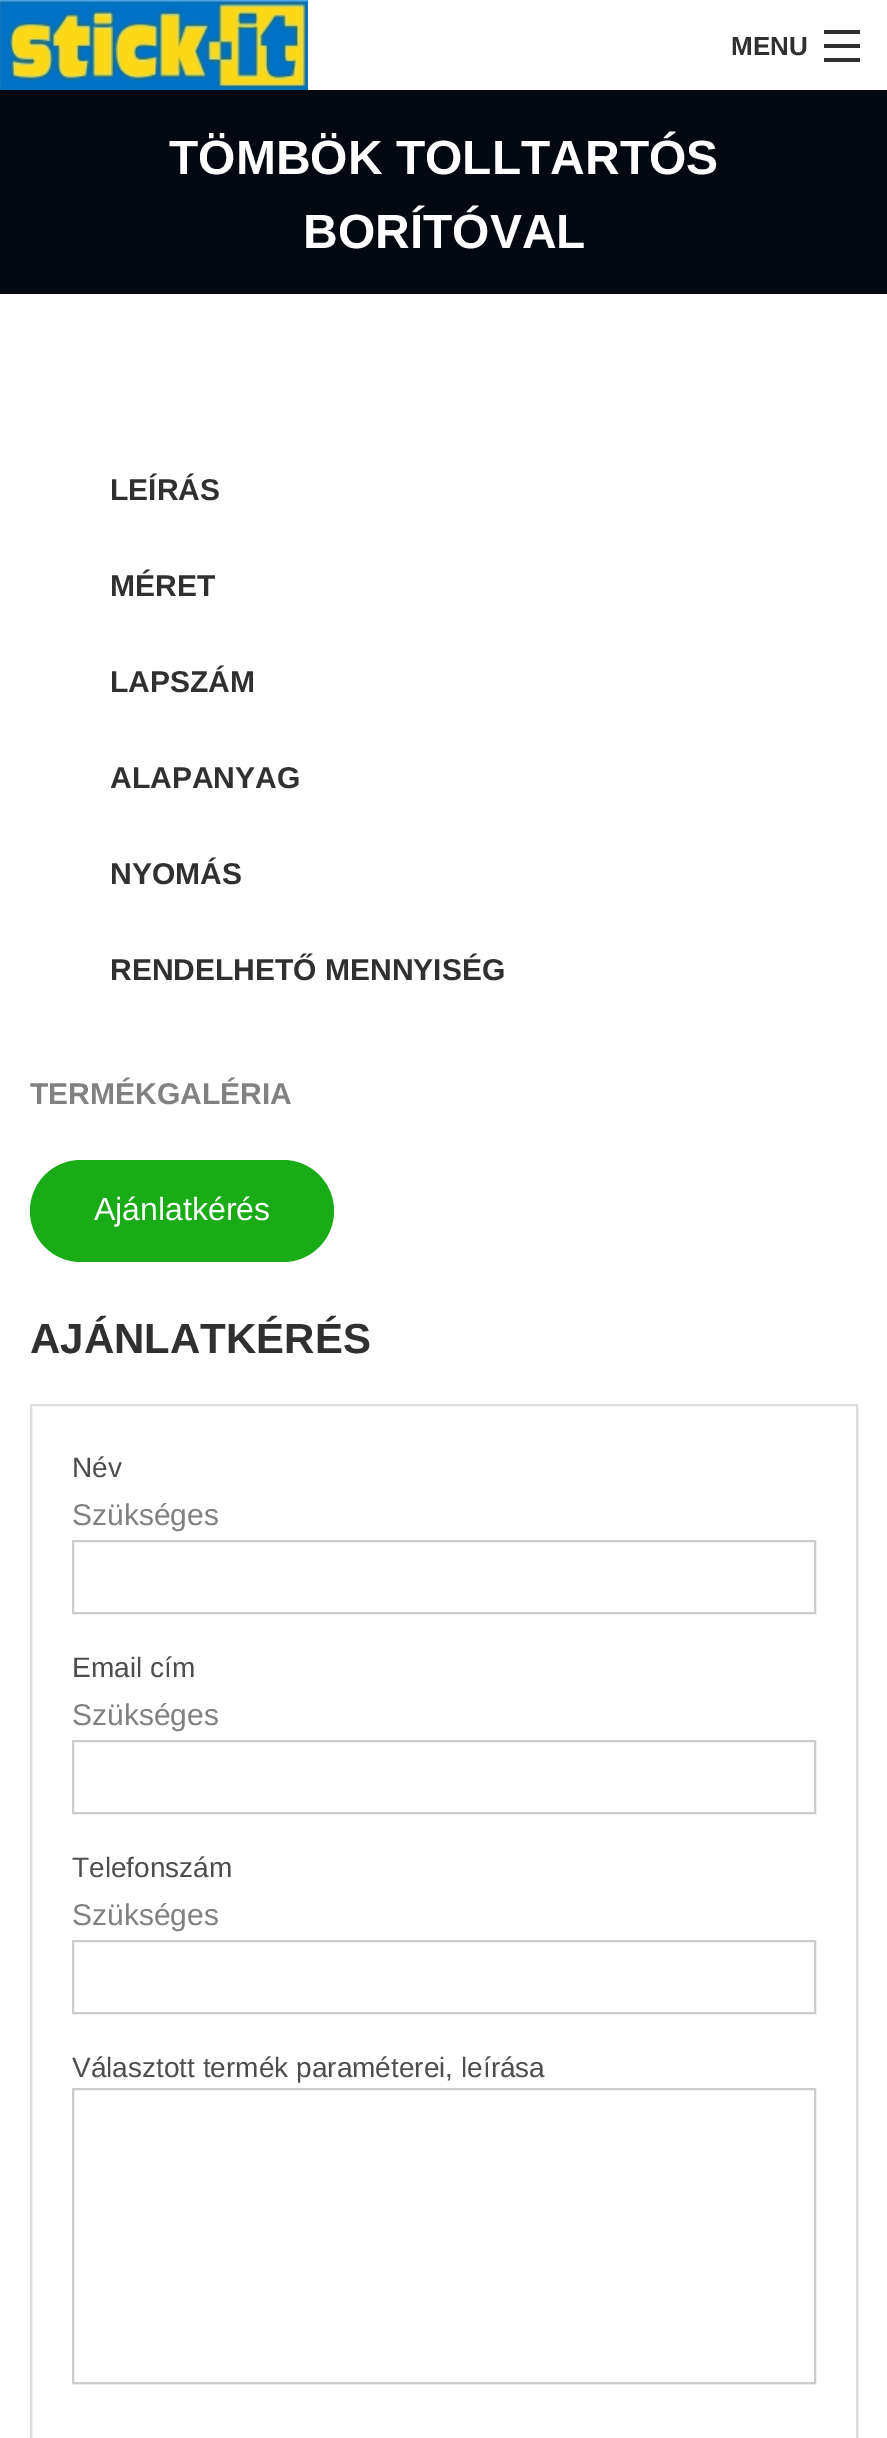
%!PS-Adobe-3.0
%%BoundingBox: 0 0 887 2438
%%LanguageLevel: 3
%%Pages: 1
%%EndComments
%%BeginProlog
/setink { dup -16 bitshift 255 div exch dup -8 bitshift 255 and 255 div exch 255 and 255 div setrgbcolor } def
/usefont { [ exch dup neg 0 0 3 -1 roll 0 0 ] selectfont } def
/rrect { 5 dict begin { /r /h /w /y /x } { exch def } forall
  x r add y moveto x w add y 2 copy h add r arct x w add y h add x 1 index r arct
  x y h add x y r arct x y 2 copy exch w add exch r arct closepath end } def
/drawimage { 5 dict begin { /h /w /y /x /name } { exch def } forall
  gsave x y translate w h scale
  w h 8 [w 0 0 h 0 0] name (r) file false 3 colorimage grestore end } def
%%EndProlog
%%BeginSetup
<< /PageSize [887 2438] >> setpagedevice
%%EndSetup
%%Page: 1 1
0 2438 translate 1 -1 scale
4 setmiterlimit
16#FFFFFF setink
0 0 887 2438 rectfill
(img1.raw) 0 0 308 90 drawimage
/LiberationSans-Bold 26 usefont
16#303030 setink
731 55 moveto (MENU) show
[
    [824 58 36 4 16#303030]
    [824 44 36 4 16#303030]
    [824 30 36 4 16#303030]
    [0 90 887 204 16#040911]
] { aload pop setink rectfill } forall
/LiberationSans-Bold 48 usefont
16#FFFFFF setink
169 174 moveto (TÖMBÖK TOLLTARTÓS) show
303 248 moveto (BORÍTÓVAL) show
/LiberationSans-Bold 30 usefont
16#303030 setink
[
    [(LEÍRÁS) 110 500]
    [(MÉRET) 110 596]
    [(LAPSZÁM) 110 692]
    [(ALAPANYAG) 110 788]
    [(NYOMÁS) 110 884]
    [(RENDELHETŐ MENNYISÉG) 110 980]
] { aload pop moveto show } forall
16#818181 setink
30 1104 moveto (TERMÉKGALÉRIA) show
16#1AAC17 setink
30 1160 304 102 51 rrect fill
/LiberationSans-Regular 32 usefont
16#FFFFFF setink
94 1220 moveto (Ajánlatkérés) show
/LiberationSans-Bold 42 usefont
16#303030 setink
30 1353 moveto (AJÁNLATKÉRÉS) show
16#DDDDDD setink
2 setlinewidth
31 1405 826 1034 rectstroke
/LiberationSans-Regular 28 usefont
16#4D4D4D setink
72 1477 moveto (Név) show
/LiberationSans-Regular 30 usefont
16#818181 setink
72 1525 moveto (Szükséges) show
16#CCCCCC setink
73 1541 742 72 rectstroke
/LiberationSans-Regular 28 usefont
16#4D4D4D setink
72 1677 moveto (Email cím) show
/LiberationSans-Regular 30 usefont
16#818181 setink
72 1725 moveto (Szükséges) show
16#CCCCCC setink
73 1741 742 72 rectstroke
/LiberationSans-Regular 28 usefont
16#4D4D4D setink
72 1877 moveto (Telefonszám) show
/LiberationSans-Regular 30 usefont
16#818181 setink
72 1925 moveto (Szükséges) show
16#CCCCCC setink
73 1941 742 72 rectstroke
/LiberationSans-Regular 28 usefont
16#4D4D4D setink
72 2077 moveto (Választott termék paraméterei, leírása) show
16#CCCCCC setink
73 2089 742 294 rectstroke
showpage
%%EOF
